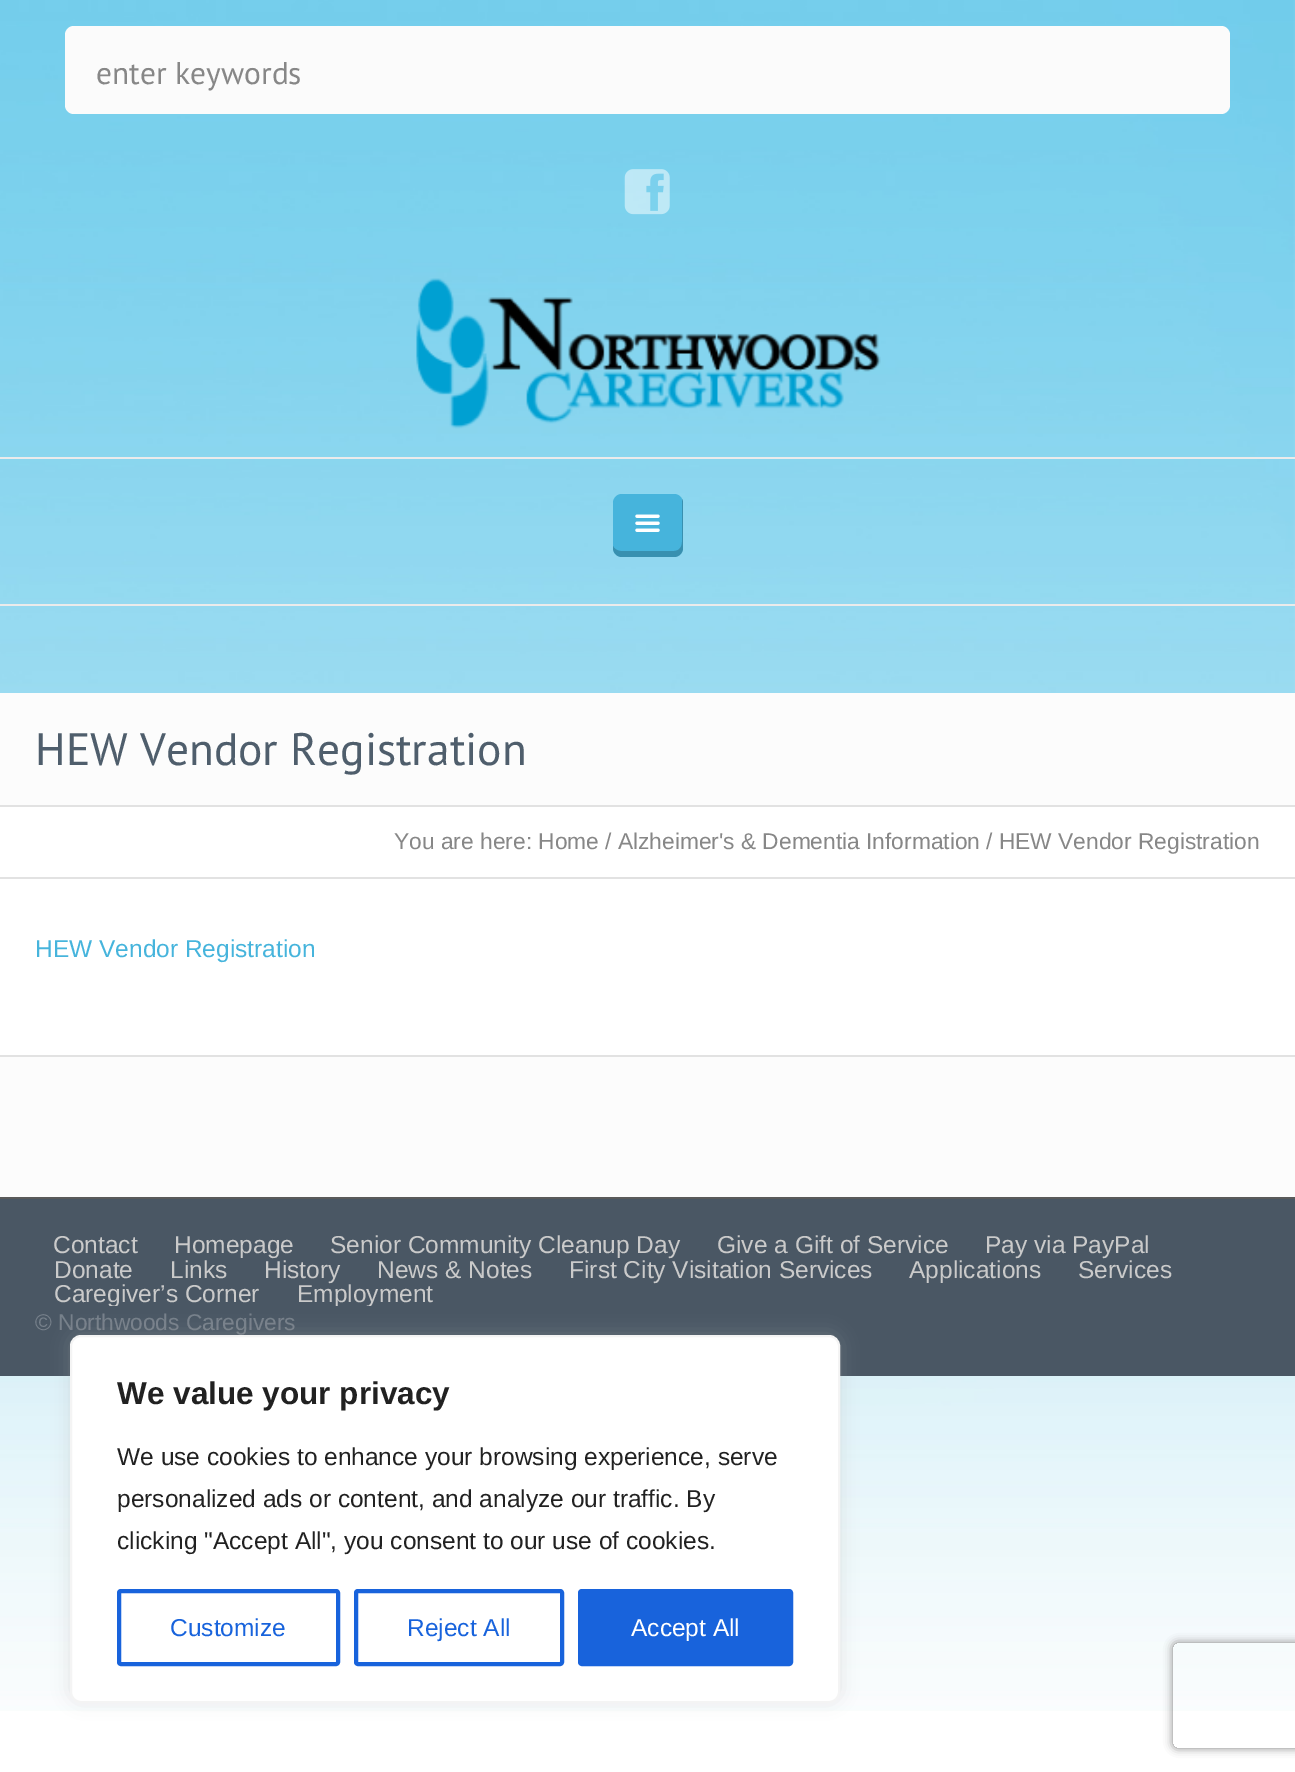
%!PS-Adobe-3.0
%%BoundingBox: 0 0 1295 1772
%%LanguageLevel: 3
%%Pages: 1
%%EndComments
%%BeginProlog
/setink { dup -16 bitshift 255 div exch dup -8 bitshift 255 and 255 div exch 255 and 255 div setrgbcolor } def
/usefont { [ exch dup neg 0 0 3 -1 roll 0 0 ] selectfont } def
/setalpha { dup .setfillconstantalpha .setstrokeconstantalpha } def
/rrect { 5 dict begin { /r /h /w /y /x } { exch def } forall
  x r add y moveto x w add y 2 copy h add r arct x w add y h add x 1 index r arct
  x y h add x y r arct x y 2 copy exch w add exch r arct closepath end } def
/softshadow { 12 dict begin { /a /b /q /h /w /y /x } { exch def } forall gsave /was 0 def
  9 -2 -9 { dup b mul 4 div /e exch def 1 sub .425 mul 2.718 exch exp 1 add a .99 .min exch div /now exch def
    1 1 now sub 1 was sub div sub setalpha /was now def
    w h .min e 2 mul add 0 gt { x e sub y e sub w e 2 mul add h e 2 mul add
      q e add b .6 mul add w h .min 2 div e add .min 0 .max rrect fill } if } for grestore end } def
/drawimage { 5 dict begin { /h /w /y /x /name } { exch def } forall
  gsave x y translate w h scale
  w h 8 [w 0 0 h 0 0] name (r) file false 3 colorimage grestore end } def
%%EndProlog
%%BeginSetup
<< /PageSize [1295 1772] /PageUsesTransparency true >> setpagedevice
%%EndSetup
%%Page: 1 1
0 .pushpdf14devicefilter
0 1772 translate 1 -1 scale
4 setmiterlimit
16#FFFFFF setink
0 0 1295 1772 rectfill
(img1.raw) 0 0 1295 1711 drawimage
16#EBEBEB setink
0 457 1295 2 rectfill
16#FBFBFB setink
65 26 1165 88 9 rrect fill
/PTSans-Regular 31.5 usefont
16#878787 setink
96 84 moveto (enter keywords) show
(img2.raw) 624 169 46 46 drawimage
(img3.raw) 416 278 465 151 drawimage
16#EBEBEB setink
0 604 1295 2 rectfill
16#46B4DC setink
613 494 70 63 9 rrect fill
0.2 setalpha
16#000000 setink
613 546 moveto 613 548 lineto 613 553 617 557 622 557 curveto 674 557 lineto 679 557 683 553 683 548 curveto 683 503 lineto 683 502 683 500 682 499 curveto 682 542 lineto 682 547 679 551 674 551 curveto 621 551 lineto 618 551 614 549 613 546 curveto closepath fill
1 setalpha
(img4.raw) 635 514 25 18 drawimage
16#FCFCFC setink
0 693 1295 112 rectfill
16#E2E2E2 setink
0 805 1295 2 rectfill
/PTSans-Regular 45.5 usefont
16#4F5E6C setink
35 765 moveto (HEW Vendor Registration) show
16#FFFFFF setink
0 807 1295 70 rectfill
16#E2E2E2 setink
0 877 1295 2 rectfill
/LiberationSans-Regular 22.75 usefont
16#878787 setink
394 849 moveto (You are here: Home / Alzheimer's & Dementia Information / HEW Vendor Registration) show
16#FFFFFF setink
0 879 1295 176 rectfill
/LiberationSans-Regular 24.5 usefont
16#46B4DC setink
35 957 moveto (HEW Vendor Registration) show
[
    [0 1057 1295 140 16#FCFCFC]
    [0 1055 1295 2 16#E2E2E2]
    [0 1199 1295 177 16#4A5764]
    [0 1197 1295 2 16#5A5A5A]
] { aload pop setink rectfill } forall
16#CACACA setink
[
    [(Contact) 53 1253]
    [(Homepage) 174 1253]
    [(Senior Community Cleanup Day) 330 1253]
    [(Give a Gift of Service) 717 1253]
    [(Pay via PayPal) 985 1253]
    [(Donate) 54 1278]
    [(Links) 170 1278]
    [(History) 264 1278]
    [(News & Notes) 377 1278]
    [(First City Visitation Services) 569 1278]
    [(Applications) 909 1278]
    [(Services) 1078 1278]
] { aload pop moveto show } forall
gsave
35 1232 1225 74 rectclip
54 1302 moveto (Caregiver’s Corner) show
297 1302 moveto (Employment) show
grestore
/LiberationSans-Regular 22.75 usefont
16#77818B setink
35 1330 moveto (© Northwoods Caregivers) show
16#ACABAB setink
70 1334 770 367 11 9 0.3 softshadow
16#FFFFFF setink
71 1336 768 366 10 rrect gsave fill grestore
16#F4F4F4 setink
2 setlinewidth
stroke
/LiberationSans-Bold 31.5 usefont
16#212121 setink
117 1404 moveto (We value your privacy) show
/LiberationSans-Regular 24.5 usefont
[
    [(We use cookies to enhance your browsing experience, serve) 117 1465]
    [(personalized ads or content, and analyze our traffic. By) 117 1507]
    [(clicking "Accept All", you consent to our use of cookies.) 117 1549]
] { aload pop moveto show } forall
16#1863DC setink
4 setlinewidth
119 1591 219 73 2 rrect stroke
170 1636 moveto (Customize) show
356 1591 206 73 2 rrect stroke
407 1636 moveto (Reject All) show
580 1591 211 73 2 rrect gsave fill grestore
stroke
16#FFFFFF setink
631 1636 moveto (Accept All) show
gsave
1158 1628 moveto 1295 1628 lineto 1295 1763 lineto 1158 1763 lineto closepath 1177 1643 moveto 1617 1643 lineto 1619 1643 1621 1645 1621 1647 curveto 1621 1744 lineto 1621 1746 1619 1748 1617 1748 curveto 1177 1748 lineto 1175 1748 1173 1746 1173 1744 curveto 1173 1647 lineto 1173 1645 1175 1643 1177 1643 curveto closepath eoclip newpath
16#808080 setink
1173 1643 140 105 4 4.5 1 softshadow
grestore
.poppdf14devicefilter showpage
%%EOF
